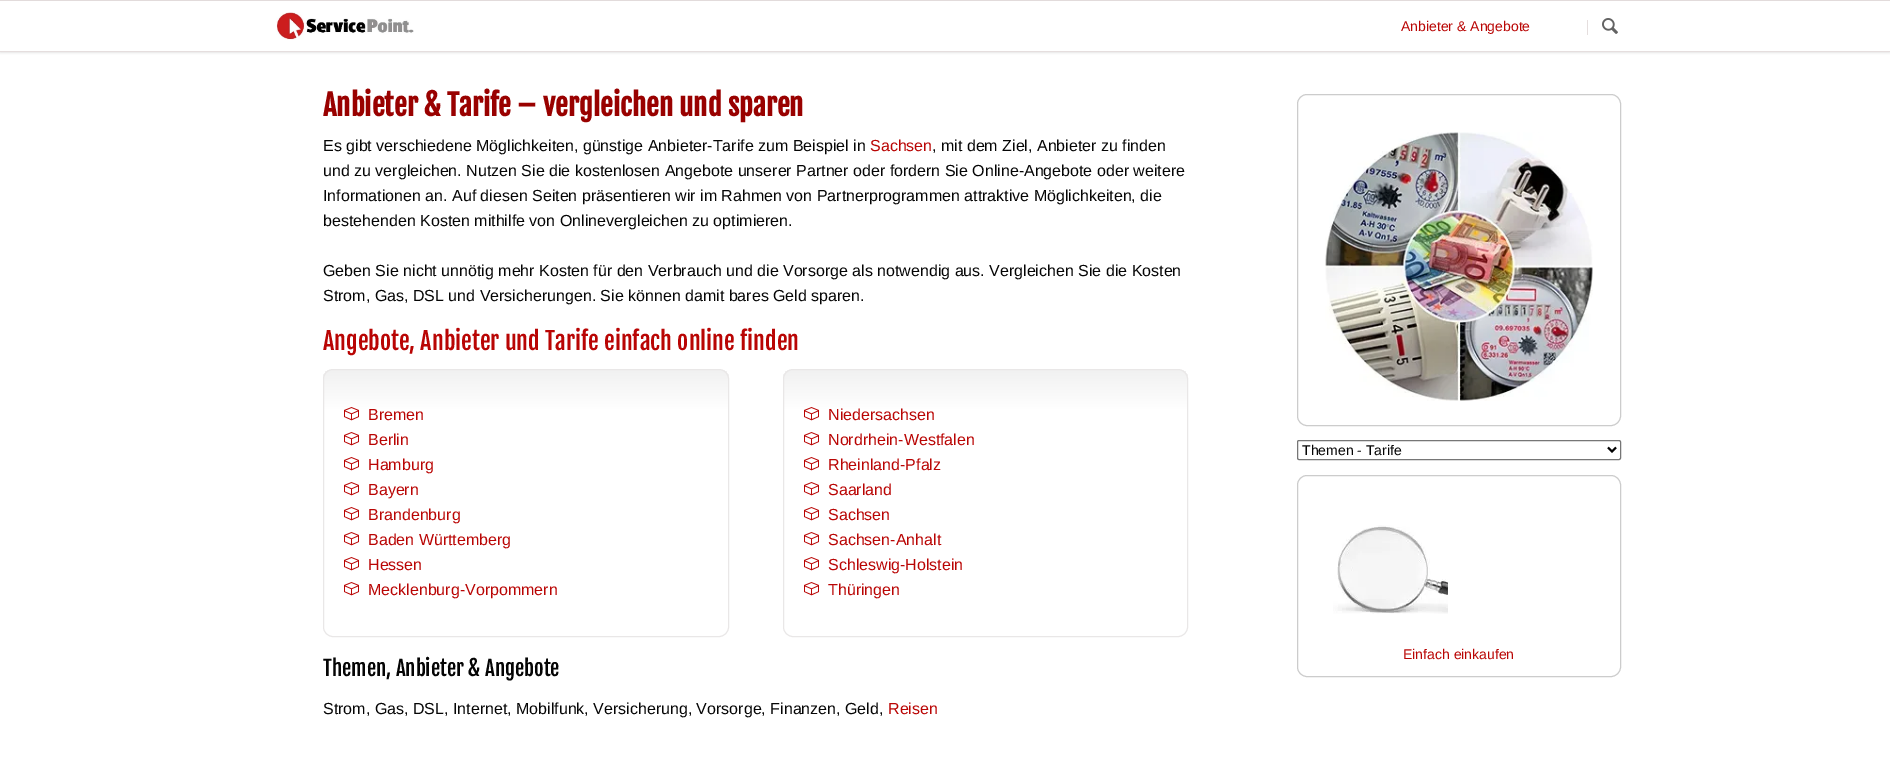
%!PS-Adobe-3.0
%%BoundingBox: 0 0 1890 782
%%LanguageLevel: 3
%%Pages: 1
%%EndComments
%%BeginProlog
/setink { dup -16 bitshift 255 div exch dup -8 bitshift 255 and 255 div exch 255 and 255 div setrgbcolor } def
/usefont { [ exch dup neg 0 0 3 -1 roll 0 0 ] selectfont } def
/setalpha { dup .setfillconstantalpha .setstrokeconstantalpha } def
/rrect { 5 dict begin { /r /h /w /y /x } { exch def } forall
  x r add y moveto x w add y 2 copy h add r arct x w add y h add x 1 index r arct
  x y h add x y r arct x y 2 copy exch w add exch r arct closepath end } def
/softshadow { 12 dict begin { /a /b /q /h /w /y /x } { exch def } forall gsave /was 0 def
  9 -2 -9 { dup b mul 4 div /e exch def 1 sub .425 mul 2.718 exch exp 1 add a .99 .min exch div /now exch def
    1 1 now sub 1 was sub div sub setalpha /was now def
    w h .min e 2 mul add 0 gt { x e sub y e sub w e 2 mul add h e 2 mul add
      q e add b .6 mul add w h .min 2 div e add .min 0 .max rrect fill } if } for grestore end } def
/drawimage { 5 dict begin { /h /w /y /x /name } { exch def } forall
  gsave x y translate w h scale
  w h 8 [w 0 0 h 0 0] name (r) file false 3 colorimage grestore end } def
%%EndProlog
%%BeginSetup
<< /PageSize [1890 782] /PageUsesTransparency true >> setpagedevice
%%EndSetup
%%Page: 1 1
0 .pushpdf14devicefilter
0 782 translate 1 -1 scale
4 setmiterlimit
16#FFFFFF setink
0 0 1890 782 rectfill
16#E5DEDE setink
0 0 1890 1 rectfill
16#000000 setink
0 2 1890 51 0 1 0.1 softshadow
16#FFFFFF setink
0 1 1890 50 rectfill
16#E5DEDE setink
0 51 1890 1 rectfill
(img1.raw) 276 12 138 28 drawimage
/LiberationSans-Regular 14 usefont
16#B90504 setink
1401 31 moveto (Anbieter & Angebote) show
16#E5DEDE setink
1587 20 1 15 rectfill
(img2.raw) 1602 18 16 16 drawimage
/FjallaOne-Bold 28.75 usefont
16#990100 setink
323 116 moveto (Anbieter & Tarife – vergleichen und sparen) show
/LiberationSans-Regular 16 usefont
16#050505 setink
323 151 moveto (Es gibt verschiedene Möglichkeiten, günstige Anbieter-Tarife zum Beispiel in) show
16#B90504 setink
870 151 moveto (Sachsen) show
16#050505 setink
[
    [(, mit dem Ziel, Anbieter zu finden) 932 151]
    [(und zu vergleichen. Nutzen Sie die kostenlosen Angebote unserer Partner oder fordern Sie Online-Angebote oder weitere) 323 176]
    [(Informationen an. Auf diesen Seiten präsentieren wir im Rahmen von Partnerprogrammen attraktive Möglichkeiten, die) 323 201]
    [(bestehenden Kosten mithilfe von Onlinevergleichen zu optimieren.) 323 226]
    [(Geben Sie nicht unnötig mehr Kosten für den Verbrauch und die Vorsorge als notwendig aus. Vergleichen Sie die Kosten) 323 276]
    [(Strom, Gas, DSL und Versicherungen. Sie können damit bares Geld sparen.) 323 301]
] { aload pop moveto show } forall
/FjallaOne-Regular 24 usefont
16#B90504 setink
323 350 moveto (Angebote, Anbieter und Tarife einfach online finden) show
gsave
323 369 406 268 10 rrect clip newpath
gsave 323 370 moveto 729 370 lineto 729 636 lineto 323 636 lineto closepath clip newpath
<< /ShadingType 2 /ColorSpace /DeviceRGB /Coords [324 370 324 410] /Extend [true true] /Function << /FunctionType 2 /Domain [0 1] /C0 [0.945 0.945 0.945] /C1 [1 1 1] /N 1 >> >> shfill grestore
grestore
16#E9E7E7 setink
323.5 369.5 405 267 9.5 rrect stroke
(img3.raw) 344 407 15 14 drawimage
/LiberationSans-Regular 16 usefont
16#B90504 setink
368 420 moveto (Bremen) show
(img4.raw) 344 432 15 14 drawimage
368 445 moveto (Berlin) show
(img4.raw) 344 457 15 14 drawimage
368 470 moveto (Hamburg) show
(img4.raw) 344 482 15 14 drawimage
368 495 moveto (Bayern) show
(img4.raw) 344 507 15 14 drawimage
368 520 moveto (Brandenburg) show
(img4.raw) 344 532 15 14 drawimage
368 545 moveto (Baden Württemberg) show
(img4.raw) 344 557 15 14 drawimage
368 570 moveto (Hessen) show
(img4.raw) 344 582 15 14 drawimage
368 595 moveto (Mecklenburg-Vorpommern) show
gsave
783 369 405 268 10 rrect clip newpath
gsave 783 370 moveto 1188 370 lineto 1188 636 lineto 783 636 lineto closepath clip newpath
<< /ShadingType 2 /ColorSpace /DeviceRGB /Coords [784 370 784 410] /Extend [true true] /Function << /FunctionType 2 /Domain [0 1] /C0 [0.945 0.945 0.945] /C1 [1 1 1] /N 1 >> >> shfill grestore
grestore
16#E9E7E7 setink
783.5 369.5 404 267 9.5 rrect stroke
(img3.raw) 804 407 15 14 drawimage
16#B90504 setink
828 420 moveto (Niedersachsen) show
(img4.raw) 804 432 15 14 drawimage
828 445 moveto (Nordrhein-Westfalen) show
(img4.raw) 804 457 15 14 drawimage
828 470 moveto (Rheinland-Pfalz) show
(img4.raw) 804 482 15 14 drawimage
828 495 moveto (Saarland) show
(img4.raw) 804 507 15 14 drawimage
828 520 moveto (Sachsen) show
(img4.raw) 804 532 15 14 drawimage
828 545 moveto (Sachsen-Anhalt) show
(img4.raw) 804 557 15 14 drawimage
828 570 moveto (Schleswig-Holstein) show
(img4.raw) 804 582 15 14 drawimage
828 595 moveto (Thüringen) show
/FjallaOne-Regular 20.75 usefont
16#050505 setink
323 676 moveto (Themen, Anbieter & Angebote) show
/LiberationSans-Regular 16 usefont
323 714 moveto (Strom, Gas, DSL, Internet, Mobilfunk, Versicherung, Vorsorge, Finanzen, Geld,) show
16#B90504 setink
888 714 moveto (Reisen) show
16#CCCCCC setink
1297.5 94.5 323 331 9.5 rrect stroke
(img5.raw) 1325 132 268 269 drawimage
16#767676 setink
1297.5 440.5 323 19 1.5 rrect stroke
16#000000 setink
2 setlinewidth
1608 447.5 moveto 1612 451.5 lineto 1616 447.5 lineto stroke
/LiberationSans-Regular 14 usefont
16#050505 setink
1302 455 moveto (Themen - Tarife) show
16#CCCCCC setink
1 setlinewidth
1297.5 475.5 323 201 9.5 rrect stroke
(img6.raw) 1333 525 115 89 drawimage
16#B90504 setink
1403 659 moveto (Einfach einkaufen) show
.poppdf14devicefilter showpage
%%EOF
